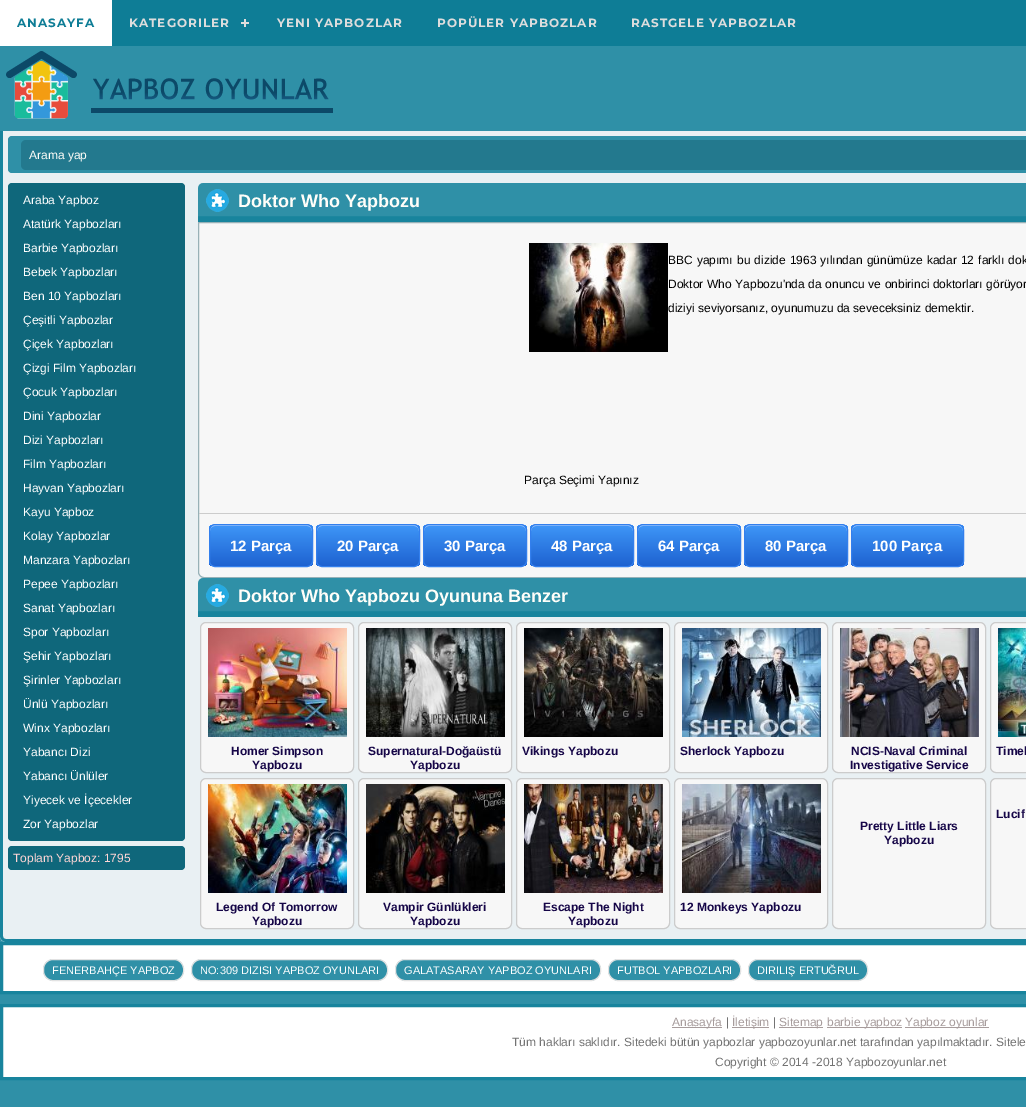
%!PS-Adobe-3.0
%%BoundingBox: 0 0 1026 1107
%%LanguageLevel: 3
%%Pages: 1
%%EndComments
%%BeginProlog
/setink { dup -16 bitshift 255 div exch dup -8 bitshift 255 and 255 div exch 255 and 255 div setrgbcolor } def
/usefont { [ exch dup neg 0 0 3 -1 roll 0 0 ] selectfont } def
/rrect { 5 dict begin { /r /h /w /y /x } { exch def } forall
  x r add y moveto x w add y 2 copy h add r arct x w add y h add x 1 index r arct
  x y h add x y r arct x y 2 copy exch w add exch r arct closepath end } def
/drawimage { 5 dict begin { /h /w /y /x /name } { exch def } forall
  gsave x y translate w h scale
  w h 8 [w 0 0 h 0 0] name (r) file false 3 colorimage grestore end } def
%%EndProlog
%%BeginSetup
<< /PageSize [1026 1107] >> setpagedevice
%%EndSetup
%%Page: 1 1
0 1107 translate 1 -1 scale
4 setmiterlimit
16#2F90A7 setink
0 0 1026 1107 rectfill
16#0E7D96 setink
112 0 914 46 rectfill
16#FFFFFF setink
0 0 112 46 rectfill
/Montserrat-Bold 12 usefont
16#0E7D96 setink
17 27 moveto 1 0 (ANASAYFA) ashow
16#DDDDDD setink
129 27 moveto 1 0 (KATEGORILER) ashow
244 19 2 8 rectfill
241 22 8 2 rectfill
277 27 moveto 1 0 (YENI YAPBOZLAR) ashow
437 27 moveto 1 0 (POPÜLER YAPBOZLAR) ashow
631 27 moveto 1 0 (RASTGELE YAPBOZLAR) ashow
(img1.raw) 6 51 327 68 drawimage
16#E9F0F3 setink
0 131 moveto 1026 131 lineto 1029.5 131 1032 133.5 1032 137 curveto 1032 936 lineto 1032 939.5 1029.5 942 1026 942 curveto 6 942 lineto 2.5 942 0 939.5 0 936 curveto closepath fill
16#18849D setink
0 131 moveto 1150 131 lineto 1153 131 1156 134 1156 137 curveto 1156 936 lineto 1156 939 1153 942 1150 942 curveto 6 942 lineto 3 942 0 939 0 936 curveto closepath 3 131 moveto 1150 131 lineto 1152 131 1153 134 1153 137 curveto 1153 936 lineto 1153 938 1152 939 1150 939 curveto 6 939 lineto 4 939 3 938 3 936 curveto closepath eofill
16#2F90A7 setink
8 136 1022 37 4 rrect fill
16#23798E setink
21 140 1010 30 5 rrect fill
/LiberationSans-Regular 12 usefont
16#FFFEF9 setink
29 159 moveto (Arama yap) show
16#0F677B setink
8 183 177 658 4 rrect fill
16#FFFFFF setink
[
    [(Araba Yapboz) 23 204]
    [(Atatürk Yapbozları) 23 228]
    [(Barbie Yapbozları) 23 252]
    [(Bebek Yapbozları) 23 276]
    [(Ben 10 Yapbozları) 23 300]
    [(Çeşitli Yapbozlar) 23 324]
    [(Çiçek Yapbozları) 23 348]
    [(Çizgi Film Yapbozları) 23 372]
    [(Çocuk Yapbozları) 23 396]
    [(Dini Yapbozlar) 23 420]
    [(Dizi Yapbozları) 23 444]
    [(Film Yapbozları) 23 468]
    [(Hayvan Yapbozları) 23 492]
    [(Kayu Yapboz) 23 516]
    [(Kolay Yapbozlar) 23 540]
    [(Manzara Yapbozları) 23 564]
    [(Pepee Yapbozları) 23 588]
    [(Sanat Yapbozları) 23 612]
    [(Spor Yapbozları) 23 636]
    [(Şehir Yapbozları) 23 660]
    [(Şirinler Yapbozları) 23 684]
    [(Ünlü Yapbozları) 23 708]
    [(Winx Yapbozları) 23 732]
    [(Yabancı Dizi) 23 756]
    [(Yabancı Ünlüler) 23 780]
    [(Yiyecek ve İçecekler) 23 804]
    [(Zor Yapbozlar) 23 828]
] { aload pop moveto show } forall
16#0F677B setink
8 846 177 24 4 rrect fill
16#FFD6D6 setink
13 862 moveto (Toplam Yapboz: 1795) show
(img2.raw) 198 183 828 39 drawimage
/LiberationSans-Bold 18 usefont
16#FFFEF9 setink
238 207 moveto (Doktor Who Yapbozu) show
16#F7F7F7 setink
198.5 222.5 moveto 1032.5 222.5 lineto 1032.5 572 lineto 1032.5 575 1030 577.5 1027 577.5 curveto 204 577.5 lineto 201 577.5 198.5 575 198.5 572 curveto closepath gsave fill grestore
16#97B1B7 setink
stroke
(img3.raw) 529 243 139 109 drawimage
/LiberationSans-Regular 12 usefont
16#000000 setink
668 264 moveto 0.75 0 32 (BBC yapımı bu dizide 1963 yılından günümüze kadar 12 farklı dok) widthshow
668 288 moveto 0.25 0 32 (Doktor Who Yapbozu'nda da onuncu ve onbirinci doktorları görüyor) widthshow
668 312 moveto (diziyi seviyorsanız, oyunumuzu da seveceksiniz demektir.) show
524 484 moveto (Parça Seçimi Yapınız) show
16#CCCCCC setink
199 513 827 1 rectfill
gsave
209 524 104 43 6 rrect clip newpath
gsave 209 525 moveto 313 525 lineto 313 566 lineto 209 566 lineto closepath clip newpath
<< /ShadingType 2 /ColorSpace /DeviceRGB /Coords [261 525 261 566] /Extend [true true] /Function << /FunctionType 3 /Domain [0 1] /Functions [<< /FunctionType 2 /Domain [0 1] /C0 [0.239 0.58 0.965] /C1 [0.239 0.58 0.965] /N 1 >> << /FunctionType 2 /Domain [0 1] /C0 [0.239 0.58 0.965] /C1 [0.118 0.384 0.816] /N 1 >>] /Bounds [0.05] /Encode [0 1 0 1] >> >> shfill grestore
grestore
16#97C4FE setink
215 526 moveto 307 526 lineto 310 526 312 528 312 531 curveto 312 521 297 525 292 525 curveto 230 525 lineto 225 525 210 521 210 531 curveto 210 528 212 526 215 526 curveto closepath fill
16#337FED setink
209.5 524.5 103 42 5.5 rrect stroke
/LiberationSans-Bold 15 usefont
16#FFFFFF setink
230 551 moveto (12 Parça) show
gsave
316 524 104 43 6 rrect clip newpath
gsave 316 525 moveto 420 525 lineto 420 566 lineto 316 566 lineto closepath clip newpath
<< /ShadingType 2 /ColorSpace /DeviceRGB /Coords [368 525 368 566] /Extend [true true] /Function << /FunctionType 3 /Domain [0 1] /Functions [<< /FunctionType 2 /Domain [0 1] /C0 [0.239 0.58 0.965] /C1 [0.239 0.58 0.965] /N 1 >> << /FunctionType 2 /Domain [0 1] /C0 [0.239 0.58 0.965] /C1 [0.118 0.384 0.816] /N 1 >>] /Bounds [0.05] /Encode [0 1 0 1] >> >> shfill grestore
grestore
16#97C4FE setink
322 526 moveto 414 526 lineto 417 526 419 528 419 531 curveto 419 521 404 525 399 525 curveto 337 525 lineto 332 525 317 521 317 531 curveto 317 528 319 526 322 526 curveto closepath fill
16#337FED setink
316.5 524.5 103 42 5.5 rrect stroke
16#FFFFFF setink
337 551 moveto (20 Parça) show
gsave
423 524 104 43 6 rrect clip newpath
gsave 423 525 moveto 527 525 lineto 527 566 lineto 423 566 lineto closepath clip newpath
<< /ShadingType 2 /ColorSpace /DeviceRGB /Coords [475 525 475 566] /Extend [true true] /Function << /FunctionType 3 /Domain [0 1] /Functions [<< /FunctionType 2 /Domain [0 1] /C0 [0.239 0.58 0.965] /C1 [0.239 0.58 0.965] /N 1 >> << /FunctionType 2 /Domain [0 1] /C0 [0.239 0.58 0.965] /C1 [0.118 0.384 0.816] /N 1 >>] /Bounds [0.05] /Encode [0 1 0 1] >> >> shfill grestore
grestore
16#97C4FE setink
429 526 moveto 521 526 lineto 524 526 526 528 526 531 curveto 526 521 511 525 506 525 curveto 444 525 lineto 439 525 424 521 424 531 curveto 424 528 426 526 429 526 curveto closepath fill
16#337FED setink
423.5 524.5 103 42 5.5 rrect stroke
16#FFFFFF setink
444 551 moveto (30 Parça) show
gsave
530 524 104 43 6 rrect clip newpath
gsave 530 525 moveto 634 525 lineto 634 566 lineto 530 566 lineto closepath clip newpath
<< /ShadingType 2 /ColorSpace /DeviceRGB /Coords [582 525 582 566] /Extend [true true] /Function << /FunctionType 3 /Domain [0 1] /Functions [<< /FunctionType 2 /Domain [0 1] /C0 [0.239 0.58 0.965] /C1 [0.239 0.58 0.965] /N 1 >> << /FunctionType 2 /Domain [0 1] /C0 [0.239 0.58 0.965] /C1 [0.118 0.384 0.816] /N 1 >>] /Bounds [0.05] /Encode [0 1 0 1] >> >> shfill grestore
grestore
16#97C4FE setink
536 526 moveto 628 526 lineto 631 526 633 528 633 531 curveto 633 521 618 525 613 525 curveto 551 525 lineto 546 525 531 521 531 531 curveto 531 528 533 526 536 526 curveto closepath fill
16#337FED setink
530.5 524.5 103 42 5.5 rrect stroke
16#FFFFFF setink
551 551 moveto (48 Parça) show
gsave
637 524 104 43 6 rrect clip newpath
gsave 637 525 moveto 741 525 lineto 741 566 lineto 637 566 lineto closepath clip newpath
<< /ShadingType 2 /ColorSpace /DeviceRGB /Coords [689 525 689 566] /Extend [true true] /Function << /FunctionType 3 /Domain [0 1] /Functions [<< /FunctionType 2 /Domain [0 1] /C0 [0.239 0.58 0.965] /C1 [0.239 0.58 0.965] /N 1 >> << /FunctionType 2 /Domain [0 1] /C0 [0.239 0.58 0.965] /C1 [0.118 0.384 0.816] /N 1 >>] /Bounds [0.05] /Encode [0 1 0 1] >> >> shfill grestore
grestore
16#97C4FE setink
643 526 moveto 735 526 lineto 738 526 740 528 740 531 curveto 740 521 725 525 720 525 curveto 658 525 lineto 653 525 638 521 638 531 curveto 638 528 640 526 643 526 curveto closepath fill
16#337FED setink
637.5 524.5 103 42 5.5 rrect stroke
16#FFFFFF setink
658 551 moveto (64 Parça) show
gsave
744 524 104 43 6 rrect clip newpath
gsave 744 525 moveto 848 525 lineto 848 566 lineto 744 566 lineto closepath clip newpath
<< /ShadingType 2 /ColorSpace /DeviceRGB /Coords [796 525 796 566] /Extend [true true] /Function << /FunctionType 3 /Domain [0 1] /Functions [<< /FunctionType 2 /Domain [0 1] /C0 [0.239 0.58 0.965] /C1 [0.239 0.58 0.965] /N 1 >> << /FunctionType 2 /Domain [0 1] /C0 [0.239 0.58 0.965] /C1 [0.118 0.384 0.816] /N 1 >>] /Bounds [0.05] /Encode [0 1 0 1] >> >> shfill grestore
grestore
16#97C4FE setink
750 526 moveto 842 526 lineto 845 526 847 528 847 531 curveto 847 521 832 525 827 525 curveto 765 525 lineto 760 525 745 521 745 531 curveto 745 528 747 526 750 526 curveto closepath fill
16#337FED setink
744.5 524.5 103 42 5.5 rrect stroke
16#FFFFFF setink
765 551 moveto (80 Parça) show
gsave
851 524 113 43 6 rrect clip newpath
gsave 851 525 moveto 964 525 lineto 964 566 lineto 851 566 lineto closepath clip newpath
<< /ShadingType 2 /ColorSpace /DeviceRGB /Coords [908 525 908 566] /Extend [true true] /Function << /FunctionType 3 /Domain [0 1] /Functions [<< /FunctionType 2 /Domain [0 1] /C0 [0.239 0.58 0.965] /C1 [0.239 0.58 0.965] /N 1 >> << /FunctionType 2 /Domain [0 1] /C0 [0.239 0.58 0.965] /C1 [0.118 0.384 0.816] /N 1 >>] /Bounds [0.05] /Encode [0 1 0 1] >> >> shfill grestore
grestore
16#97C4FE setink
857 526 moveto 958 526 lineto 961 526 963 528 963 531 curveto 963 521 946 525 941 525 curveto 874 525 lineto 869 525 852 521 852 531 curveto 852 528 854 526 857 526 curveto closepath fill
16#337FED setink
851.5 524.5 112 42 5.5 rrect stroke
16#FFFFFF setink
872 551 moveto (100 Parça) show
(img2.raw) 198 578 828 39 drawimage
/LiberationSans-Bold 18 usefont
16#FFFEF9 setink
238 602 moveto (Doktor Who Yapbozu Oyununa Benzer) show
16#F7F7F7 setink
200.5 622.5 153 150 5.5 rrect gsave fill grestore
16#CCCCCC setink
stroke
(img4.raw) 208 628 139 109 drawimage
/LiberationSans-Bold 12 usefont
16#150547 setink
231 755 moveto (Homer Simpson) show
252 769 moveto (Yapbozu) show
16#F7F7F7 setink
358.5 622.5 153 150 5.5 rrect gsave fill grestore
16#CCCCCC setink
stroke
(img5.raw) 366 628 139 109 drawimage
16#150547 setink
368 755 moveto (Supernatural-Doğaüstü) show
410 769 moveto (Yapbozu) show
16#F7F7F7 setink
516.5 622.5 153 150 5.5 rrect gsave fill grestore
16#CCCCCC setink
stroke
(img6.raw) 524 628 139 109 drawimage
16#150547 setink
522 755 moveto (Vikings Yapbozu) show
16#F7F7F7 setink
674.5 622.5 153 150 5.5 rrect gsave fill grestore
16#CCCCCC setink
stroke
(img7.raw) 682 628 139 109 drawimage
16#150547 setink
680 755 moveto (Sherlock Yapbozu) show
16#F7F7F7 setink
832.5 622.5 153 150 5.5 rrect gsave fill grestore
16#CCCCCC setink
stroke
(img8.raw) 840 628 139 109 drawimage
16#150547 setink
851 755 moveto (NCIS-Naval Criminal) show
850 769 moveto (Investigative Service) show
16#F7F7F7 setink
990.5 622.5 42 150 5.5 rrect gsave fill grestore
16#CCCCCC setink
stroke
(img9.raw) 998 628 28 109 drawimage
16#150547 setink
996 755 moveto (Timel) show
16#F7F7F7 setink
990.5 778.5 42 150 5.5 rrect gsave fill grestore
16#CCCCCC setink
stroke
16#150547 setink
996 818 moveto (Lucif) show
16#F7F7F7 setink
832.5 778.5 153 150 5.5 rrect gsave fill grestore
16#CCCCCC setink
stroke
16#150547 setink
860 830 moveto (Pretty Little Liars) show
884 844 moveto (Yapbozu) show
16#F7F7F7 setink
200.5 778.5 153 150 5.5 rrect gsave fill grestore
16#CCCCCC setink
stroke
(img10.raw) 208 784 139 109 drawimage
16#150547 setink
216 911 moveto (Legend Of Tomorrow) show
252 925 moveto (Yapbozu) show
16#F7F7F7 setink
358.5 778.5 153 150 5.5 rrect gsave fill grestore
16#CCCCCC setink
stroke
(img11.raw) 366 784 139 109 drawimage
16#150547 setink
383 911 moveto (Vampir Günlükleri) show
410 925 moveto (Yapbozu) show
16#F7F7F7 setink
516.5 778.5 153 150 5.5 rrect gsave fill grestore
16#CCCCCC setink
stroke
(img12.raw) 524 784 139 109 drawimage
16#150547 setink
543 911 moveto (Escape The Night) show
568 925 moveto (Yapbozu) show
16#F7F7F7 setink
674.5 778.5 153 150 5.5 rrect gsave fill grestore
16#CCCCCC setink
stroke
(img13.raw) 682 784 139 109 drawimage
16#150547 setink
680 911 moveto (12 Monkeys Yapbozu) show
16#FFFFFF setink
1.5 943.5 moveto 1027.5 943.5 lineto 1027.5 992.5 lineto 1.5 992.5 lineto closepath gsave fill grestore
16#18849D setink
3 setlinewidth
stroke
16#2F90A7 setink
43.5 959.5 140 21 9.5 rrect gsave fill grestore
16#E2E2E2 setink
1 setlinewidth
stroke
/LiberationSans-Regular 11 usefont
16#FFFFFF setink
52 974 moveto (FENERBAHÇE YAPBOZ) show
16#2F90A7 setink
191.5 959.5 196 21 9.5 rrect gsave fill grestore
16#E2E2E2 setink
stroke
16#FFFFFF setink
200 974 moveto (NO:309 DIZISI YAPBOZ OYUNLARI) show
16#2F90A7 setink
395.5 959.5 205 21 9.5 rrect gsave fill grestore
16#E2E2E2 setink
stroke
16#FFFFFF setink
404 974 moveto (GALATASARAY YAPBOZ OYUNLARI) show
16#2F90A7 setink
608.5 959.5 132 21 9.5 rrect gsave fill grestore
16#E2E2E2 setink
stroke
16#FFFFFF setink
617 974 moveto (FUTBOL YAPBOZLARI) show
16#2F90A7 setink
748.5 959.5 119 21 9.5 rrect gsave fill grestore
16#E2E2E2 setink
stroke
16#FFFFFF setink
757 974 moveto (DIRILIŞ ERTUĞRUL) show
1.5 1005.5 moveto 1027.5 1005.5 lineto 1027.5 1078.5 lineto 1.5 1078.5 lineto closepath gsave fill grestore
16#18849D setink
3 setlinewidth
stroke
16#A79C9C setink
672 1027 50 1 rectfill
/LiberationSans-Regular 12 usefont
672 1026 moveto (Anasayfa) show
16#737373 setink
726 1026 moveto (|) show
16#A79C9C setink
732 1027 37 1 rectfill
732 1026 moveto (İletişim) show
16#737373 setink
773 1026 moveto (|) show
16#A79C9C setink
779 1027 44 1 rectfill
779 1026 moveto (Sitemap) show
827 1027 75 1 rectfill
827 1026 moveto (barbie yapboz) show
905 1027 84 1 rectfill
905 1026 moveto (Yapboz oyunlar) show
16#737373 setink
512 1046 moveto (Tüm hakları saklıdır. Sitedeki bütün yapbozlar yapbozoyunlar.net tarafından yapılmaktadır. Sitele) show
715 1066 moveto (Copyright © 2014 -2018 Yapbozoyunlar.net) show
showpage
%%EOF
